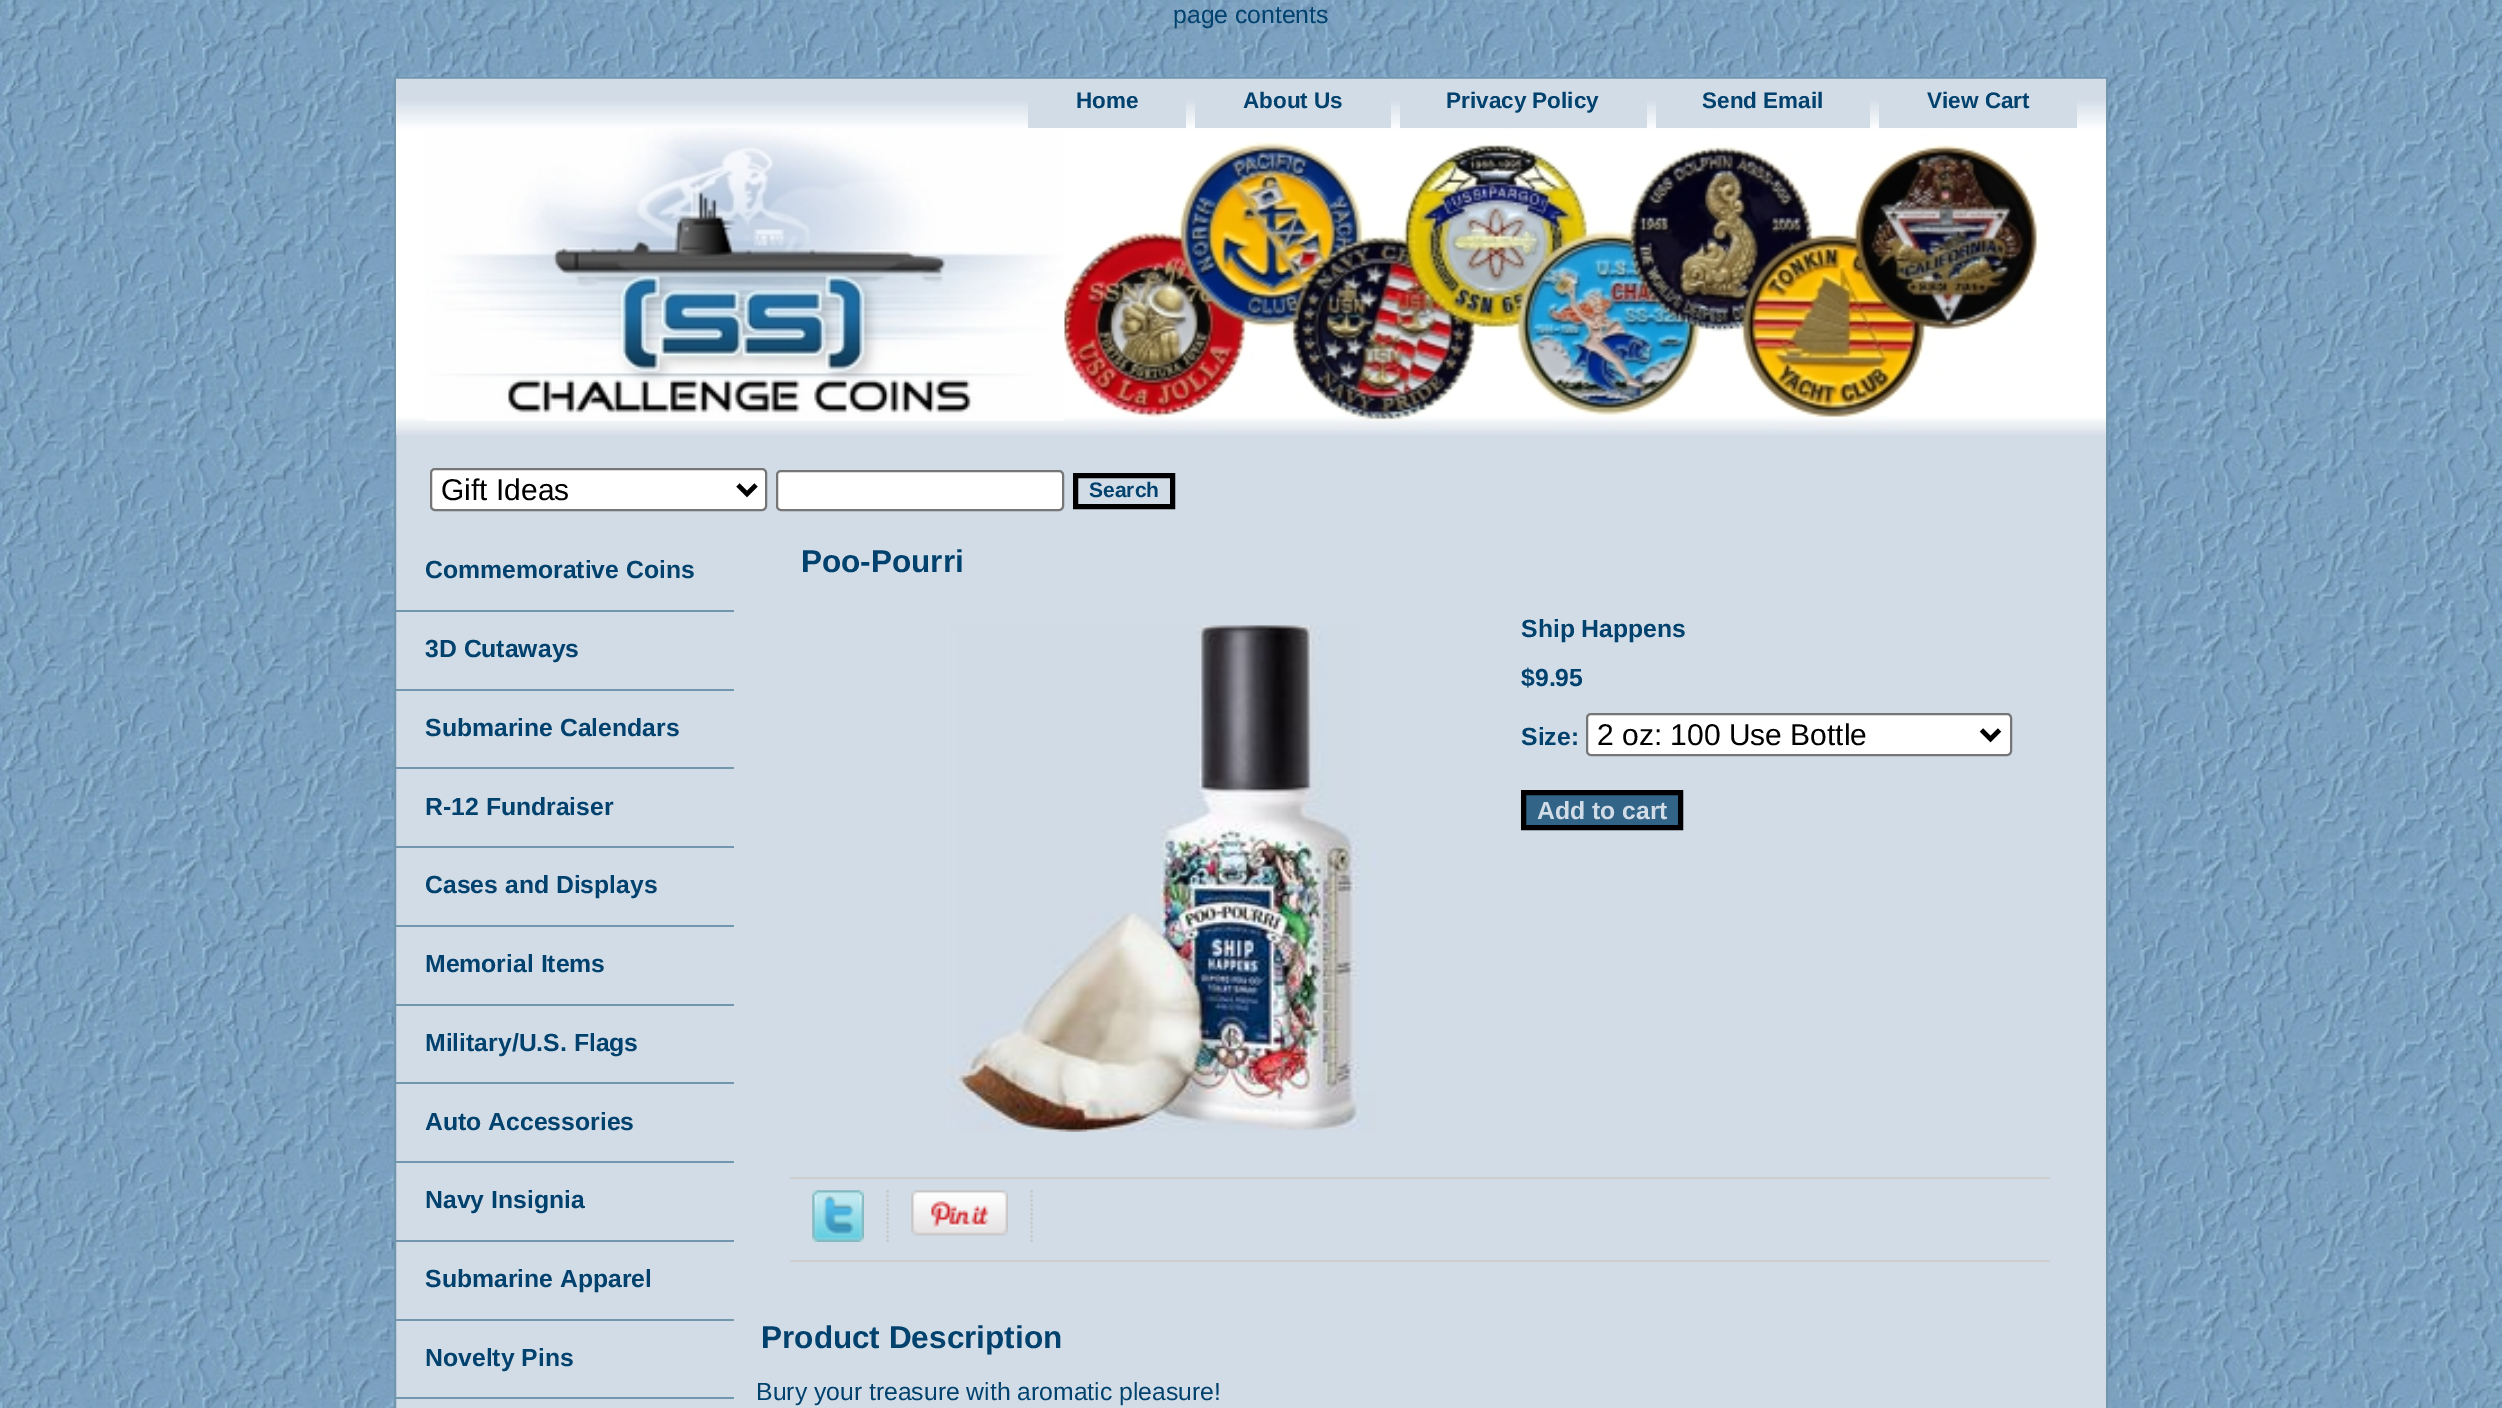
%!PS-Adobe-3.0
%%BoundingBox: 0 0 2502 1408
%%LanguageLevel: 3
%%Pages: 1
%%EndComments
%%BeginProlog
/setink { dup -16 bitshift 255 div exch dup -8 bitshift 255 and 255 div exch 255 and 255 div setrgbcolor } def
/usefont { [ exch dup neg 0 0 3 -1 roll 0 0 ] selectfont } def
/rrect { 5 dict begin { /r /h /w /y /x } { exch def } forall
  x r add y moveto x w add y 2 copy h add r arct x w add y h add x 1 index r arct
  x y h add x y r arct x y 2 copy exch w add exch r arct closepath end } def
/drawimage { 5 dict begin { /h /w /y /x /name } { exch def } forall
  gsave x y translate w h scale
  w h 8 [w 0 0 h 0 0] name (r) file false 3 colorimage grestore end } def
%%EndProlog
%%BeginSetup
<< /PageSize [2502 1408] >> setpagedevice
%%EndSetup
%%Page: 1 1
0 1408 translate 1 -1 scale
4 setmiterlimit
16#FFFFFF setink
0 0 2502 1408 rectfill
(img1.raw) 0 0 2502 1408 drawimage
/LiberationSans-Regular 24.75 usefont
16#00416E setink
1173 23 moveto (page contents) show
16#D2DCE6 setink
396 435 1710 973 rectfill
16#7396AF setink
2 setlinewidth
395 78 1712 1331 rectstroke
(img2.raw) 396 78 1710 357 drawimage
16#D2DCE6 setink
1028 100 158 28 rectfill
/LiberationSans-Bold 22.5 usefont
16#00416E setink
1076 108 moveto (Home) show
16#D2DCE6 setink
1195 100 196 28 rectfill
16#00416E setink
1243 108 moveto (About Us) show
16#D2DCE6 setink
1400 100 247 28 rectfill
16#00416E setink
1446 108 moveto (Privacy Policy) show
16#D2DCE6 setink
1656 100 214 28 rectfill
16#00416E setink
1702 108 moveto (Send Email) show
16#D2DCE6 setink
1879 100 198 28 rectfill
16#00416E setink
1927 108 moveto (View Cart) show
(img3.raw) 425 128 640 293 drawimage
16#FFFFFF setink
431 469 335 41 4 rrect gsave fill grestore
16#767676 setink
stroke
16#000000 setink
4.5 setlinewidth
738 485 moveto 747 494 lineto 756 485 lineto stroke
/LiberationSans-Regular 30 usefont
441 500 moveto (Gift Ideas) show
16#FFFFFF setink
777 471 286 39 4 rrect gsave fill grestore
16#767676 setink
2 setlinewidth
stroke
16#000000 setink
5 setlinewidth
1075.5 475.5 97 31 rectstroke
/LiberationSans-Bold 21 usefont
16#00416E setink
1089 497 moveto (Search) show
16#7396AF setink
396 610 338 2 rectfill
/LiberationSans-Bold 24.75 usefont
16#00416E setink
425 578 moveto (Commemorative Coins) show
16#7396AF setink
396 689 338 2 rectfill
16#00416E setink
425 657 moveto (3D Cutaways) show
16#7396AF setink
396 767 338 2 rectfill
16#00416E setink
425 736 moveto (Submarine Calendars) show
16#7396AF setink
396 846 338 2 rectfill
16#00416E setink
425 815 moveto (R-12 Fundraiser) show
16#7396AF setink
396 925 338 2 rectfill
16#00416E setink
425 893 moveto (Cases and Displays) show
16#7396AF setink
396 1004 338 2 rectfill
16#00416E setink
425 972 moveto (Memorial Items) show
16#7396AF setink
396 1082 338 2 rectfill
16#00416E setink
425 1051 moveto (Military/U.S. Flags) show
16#7396AF setink
396 1161 338 2 rectfill
16#00416E setink
425 1130 moveto (Auto Accessories) show
16#7396AF setink
396 1240 338 2 rectfill
16#00416E setink
425 1208 moveto (Navy Insignia) show
16#7396AF setink
396 1319 338 2 rectfill
16#00416E setink
425 1287 moveto (Submarine Apparel) show
16#7396AF setink
396 1397 338 2 rectfill
16#00416E setink
425 1366 moveto (Novelty Pins) show
/LiberationSans-Bold 31.5 usefont
801 572 moveto (Poo-Pourri) show
(img4.raw) 946 625 431 507 drawimage
/LiberationSans-Bold 24.75 usefont
[
    [(Ship Happens) 1521 637]
    [($9.95) 1521 686]
    [(Size:) 1521 745]
] { aload pop moveto show } forall
16#FFFFFF setink
1587 714 424 41 4 rrect gsave fill grestore
16#767676 setink
2 setlinewidth
stroke
16#000000 setink
4.5 setlinewidth
1981.5 730 moveto 1990.5 739 lineto 1999.5 730 lineto stroke
/LiberationSans-Regular 30 usefont
1597 745 moveto (2 oz: 100 Use Bottle) show
16#326487 setink
1523.5 792.5 moveto 1680.5 792.5 lineto 1680.5 827.5 lineto 1523.5 827.5 lineto closepath gsave fill grestore
16#000000 setink
5 setlinewidth
stroke
/LiberationSans-Bold 24.75 usefont
16#D2DCE6 setink
1537 819 moveto (Add to cart) show
16#CFCECE setink
790 1177 1260 2 rectfill
(img5.raw) 812 1190 52 52 drawimage
(img6.raw) 886 1190 3 52 drawimage
(img7.raw) 911 1190 97 46 drawimage
(img6.raw) 1030 1190 3 52 drawimage
790 1260 1260 2 rectfill
/LiberationSans-Bold 31.5 usefont
16#00416E setink
761 1348 moveto (Product Description) show
/LiberationSans-Regular 24.75 usefont
756 1400 moveto (Bury your treasure with aromatic pleasure!) show
showpage
%%EOF
